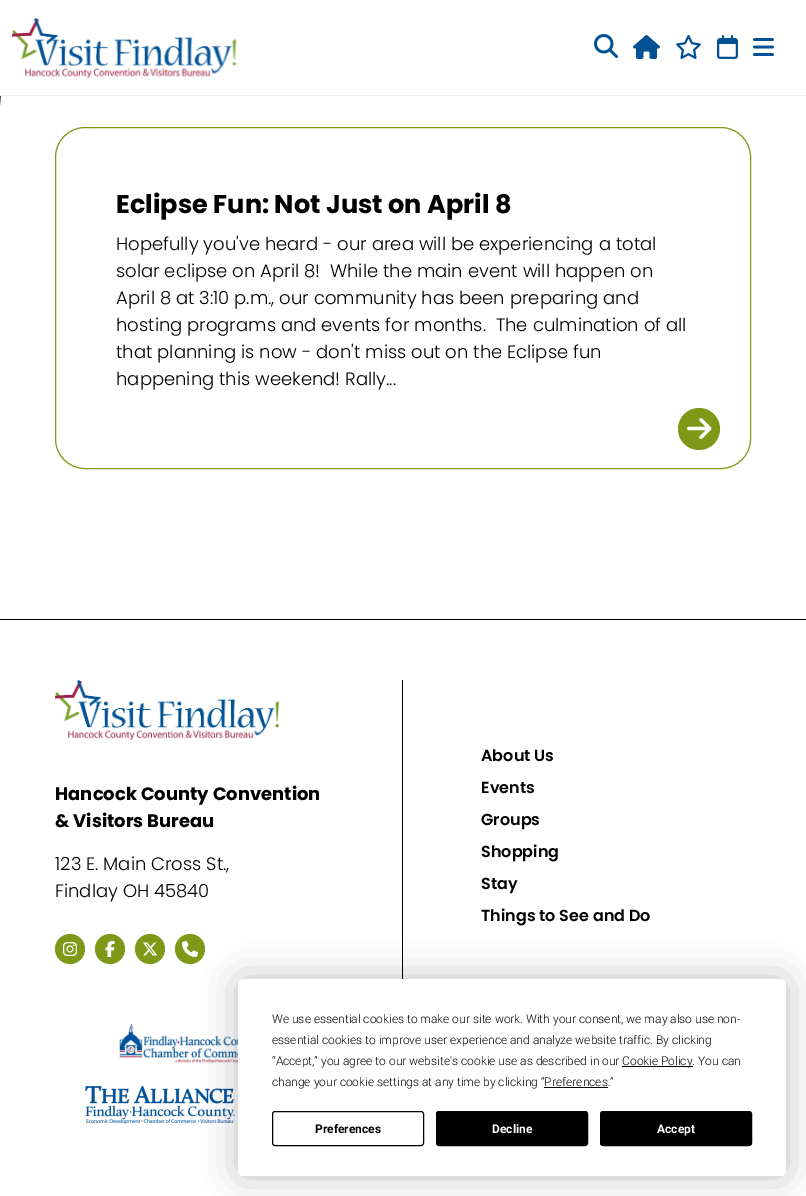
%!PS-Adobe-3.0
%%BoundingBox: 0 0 806 1196
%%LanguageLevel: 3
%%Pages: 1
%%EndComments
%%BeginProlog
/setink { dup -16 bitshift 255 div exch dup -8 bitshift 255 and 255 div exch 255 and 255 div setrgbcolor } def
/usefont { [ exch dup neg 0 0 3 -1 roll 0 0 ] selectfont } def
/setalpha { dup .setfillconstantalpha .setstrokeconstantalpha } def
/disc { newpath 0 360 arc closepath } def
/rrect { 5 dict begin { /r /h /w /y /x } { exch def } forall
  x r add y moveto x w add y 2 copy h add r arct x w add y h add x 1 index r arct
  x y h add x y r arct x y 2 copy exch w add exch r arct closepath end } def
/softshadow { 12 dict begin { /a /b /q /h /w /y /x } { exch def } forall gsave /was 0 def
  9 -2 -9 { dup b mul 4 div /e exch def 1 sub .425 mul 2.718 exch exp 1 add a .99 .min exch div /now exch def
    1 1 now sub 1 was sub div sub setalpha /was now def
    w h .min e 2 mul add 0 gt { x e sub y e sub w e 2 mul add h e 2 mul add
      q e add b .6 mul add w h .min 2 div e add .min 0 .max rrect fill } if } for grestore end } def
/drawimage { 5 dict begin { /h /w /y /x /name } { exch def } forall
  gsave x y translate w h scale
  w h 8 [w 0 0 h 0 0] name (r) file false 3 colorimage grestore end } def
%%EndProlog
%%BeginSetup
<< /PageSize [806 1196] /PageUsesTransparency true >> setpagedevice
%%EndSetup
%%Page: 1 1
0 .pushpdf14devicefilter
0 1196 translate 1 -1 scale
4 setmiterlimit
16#FFFFFF setink
0 0 806 1196 rectfill
16#000000 setink
0 96 1 19 rectfill
16#FFFFFF setink
200 -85 moveto 806 -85 lineto 806 619 lineto 0 619 lineto 0 115 lineto 0 4.5 89.5 -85 200 -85 curveto closepath fill
16#EFEFEF setink
0 95 806 1 rectfill
(img1.raw) 12 18 225 60 drawimage
(img2.raw) 594 34 24 24 drawimage
(img3.raw) 633 35 27 24 drawimage
(img4.raw) 676 35 25 24 drawimage
(img5.raw) 717 35 21 24 drawimage
(img6.raw) 753 38 21 18 drawimage
16#7D9917 setink
55.5 127.5 695 341 29.5 rrect stroke
/Poppins-Bold 25.6 usefont
16#000000 setink
116 213 moveto (Eclipse Fun: Not Just on April 8) show
/Poppins-Light 18 usefont
[
    [(Hopefully you've heard - our area will be experiencing a total) 116 250]
    [(solar eclipse on April 8!  While the main event will happen on) 116 277]
    [(April 8 at 3:10 p.m., our community has been preparing and) 116 304]
    [(hosting programs and events for months.  The culmination of all) 116 331]
    [(that planning is now - don't miss out on the Eclipse fun) 116 358]
    [(happening this weekend! Rally...) 116 385]
] { aload pop moveto show } forall
16#7D9917 setink
699 429 21 disc fill
(img7.raw) 687 418 25 21 drawimage
16#000000 setink
0 619 806 1 rectfill
402 680 1 299 rectfill
(img8.raw) 55 680 224 60 drawimage
/Poppins-Bold 18 usefont
55 800 moveto (Hancock County Convention) show
55 827 moveto (& Visitors Bureau) show
/Poppins-Light 18 usefont
55 870 moveto (123 E. Main Cross St.,) show
55 897 moveto (Findlay OH 45840) show
16#7D9917 setink
70 949 15 disc fill
(img9.raw) 63 942 14 14 drawimage
110 949 15 disc fill
(img10.raw) 105 941 10 16 drawimage
150 949 15 disc fill
(img11.raw) 143 942 15 14 drawimage
190 949 15 disc fill
(img12.raw) 182 941 16 16 drawimage
/Poppins-SemiBold 16 usefont
16#000000 setink
[
    [(About Us) 481 761]
    [(Events) 481 793]
    [(Groups) 481 825]
    [(Shopping) 481 857]
    [(Stay) 481 889]
    [(Things to See and Do) 481 921]
] { aload pop moveto show } forall
(img13.raw) 119 1023 119 41 drawimage
(img14.raw) 85 1086 150 38 drawimage
238 979 548 197 5 17.5 0.25 softshadow
16#FFFFFF setink
238 979 548 197 5 rrect fill
/Roboto-Light 12 usefont
16#000000 setink
[
    [(We use essential cookies to make our site work. With your consent, we may also use non-) 272 1023]
    [(essential cookies to improve user experience and analyze website traffic. By clicking) 272 1044]
    [(“Accept,” you agree to our website's cookie use as described in our) 272 1065]
] { aload pop moveto show } forall
622 1066 71 1 rectfill
622 1065 moveto (Cookie Policy. You can) show
272 1086 moveto (change your cookie settings at any time by clicking “Preferences.”) show
544 1087 64 1 rectfill
272.5 1111.5 151 34 2.5 rrect stroke
/Roboto-Bold 12 usefont
315 1133 moveto (Preferences) show
436.5 1111.5 151 34 2.5 rrect gsave fill grestore
stroke
16#FFFFFF setink
492 1133 moveto (Decline) show
16#000000 setink
600.5 1111.5 151 34 2.5 rrect gsave fill grestore
stroke
16#FFFFFF setink
657 1133 moveto (Accept) show
.poppdf14devicefilter showpage
%%EOF
